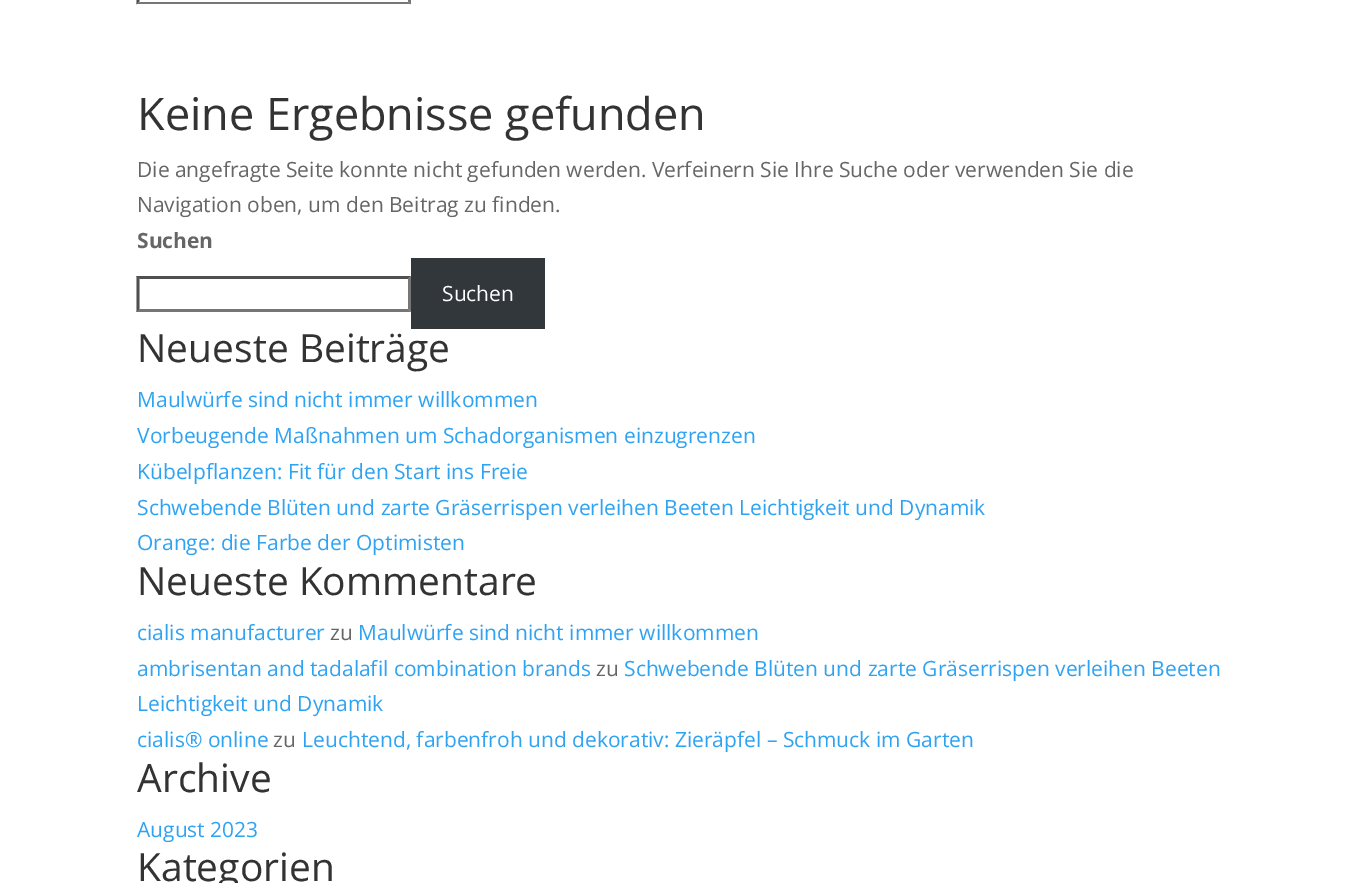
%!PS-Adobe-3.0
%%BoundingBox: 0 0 1364 883
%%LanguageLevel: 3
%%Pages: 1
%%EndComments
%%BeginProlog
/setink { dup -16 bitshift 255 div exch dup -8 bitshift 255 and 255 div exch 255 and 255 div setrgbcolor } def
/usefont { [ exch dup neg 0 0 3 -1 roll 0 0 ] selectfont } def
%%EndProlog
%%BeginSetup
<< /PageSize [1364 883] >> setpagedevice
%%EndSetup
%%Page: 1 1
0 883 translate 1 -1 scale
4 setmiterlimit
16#FFFFFF setink
0 0 1364 883 rectfill
16#767676 setink
411 -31.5 moveto 411 4.5 lineto 408 1.5 lineto 408 -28.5 lineto closepath fill
411 4 moveto 136 4 lineto 140 2 lineto 408 2 lineto closepath fill
16#4F4F4F setink
136.5 4.5 moveto 136.5 -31.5 lineto 139.5 -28.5 lineto 139.5 1.5 lineto closepath fill
/OpenSans-Regular 45 usefont
16#333333 setink
137 130 moveto (Keine Ergebnisse gefunden) show
/OpenSans-Regular 21 usefont
16#666666 setink
137 177 moveto (Die angefragte Seite konnte nicht gefunden werden. Verfeinern Sie Ihre Suche oder verwenden Sie die) show
137 212 moveto (Navigation oben, um den Beitrag zu finden.) show
/OpenSans-Bold 21 usefont
137 248 moveto (Suchen) show
16#4F4F4F setink
136 276 moveto 411 276 lineto 408 279 lineto 140 279 lineto closepath fill
16#767676 setink
411 276 moveto 411 312 lineto 408 309 lineto 408 279 lineto closepath fill
411 312 moveto 136 312 lineto 140 309 lineto 408 309 lineto closepath fill
16#4F4F4F setink
136.5 312 moveto 136.5 276 lineto 139.5 279 lineto 139.5 309 lineto closepath fill
16#32373C setink
411 258 134 71 rectfill
/OpenSans-Regular 21 usefont
16#FFFFFF setink
442 301 moveto (Suchen) show
/OpenSans-Regular 39 usefont
16#333333 setink
137 362 moveto (Neueste Beiträge) show
/OpenSans-Regular 21 usefont
16#2EA3F2 setink
[
    [(Maulwürfe sind nicht immer willkommen) 137 407]
    [(Vorbeugende Maßnahmen um Schadorganismen einzugrenzen) 137 443]
    [(Kübelpflanzen: Fit für den Start ins Freie) 137 479]
    [(Schwebende Blüten und zarte Gräserrispen verleihen Beeten Leichtigkeit und Dynamik) 137 515]
    [(Orange: die Farbe der Optimisten) 137 550]
] { aload pop moveto show } forall
/OpenSans-Regular 39 usefont
16#333333 setink
137 595 moveto (Neueste Kommentare) show
/OpenSans-Regular 21 usefont
16#2EA3F2 setink
137 640 moveto (cialis manufacturer) show
16#666666 setink
330 640 moveto (zu) show
16#2EA3F2 setink
358 640 moveto (Maulwürfe sind nicht immer willkommen) show
137 676 moveto (ambrisentan and tadalafil combination brands) show
16#666666 setink
596 676 moveto (zu) show
16#2EA3F2 setink
[
    [(Schwebende Blüten und zarte Gräserrispen verleihen Beeten) 624 676]
    [(Leichtigkeit und Dynamik) 137 711]
    [(cialis® online) 137 747]
] { aload pop moveto show } forall
16#666666 setink
273 747 moveto (zu) show
16#2EA3F2 setink
302 747 moveto (Leuchtend, farbenfroh und dekorativ: Zieräpfel – Schmuck im Garten) show
/OpenSans-Regular 39 usefont
16#333333 setink
137 792 moveto (Archive) show
/OpenSans-Regular 21 usefont
16#2EA3F2 setink
137 837 moveto (August 2023) show
/OpenSans-Regular 39 usefont
16#333333 setink
137 881 moveto (Kategorien) show
showpage
%%EOF
